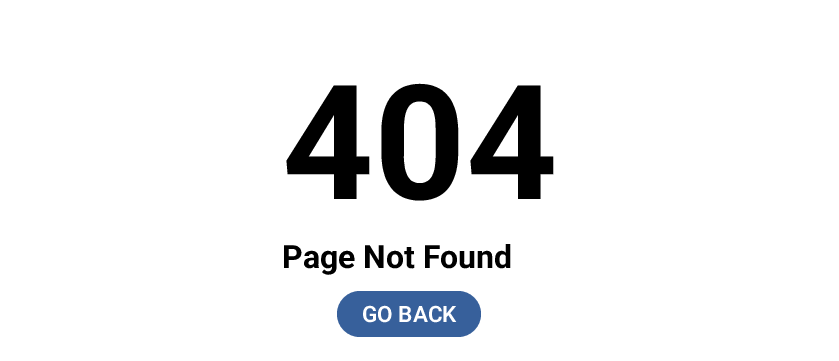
%!PS-Adobe-3.0
%%BoundingBox: 0 0 839 361
%%LanguageLevel: 3
%%Pages: 1
%%EndComments
%%BeginProlog
/setink { dup -16 bitshift 255 div exch dup -8 bitshift 255 and 255 div exch 255 and 255 div setrgbcolor } def
/usefont { [ exch dup neg 0 0 3 -1 roll 0 0 ] selectfont } def
/rrect { 5 dict begin { /r /h /w /y /x } { exch def } forall
  x r add y moveto x w add y 2 copy h add r arct x w add y h add x 1 index r arct
  x y h add x y r arct x y 2 copy exch w add exch r arct closepath end } def
%%EndProlog
%%BeginSetup
<< /PageSize [839 361] >> setpagedevice
%%EndSetup
%%Page: 1 1
0 361 translate 1 -1 scale
4 setmiterlimit
16#FFFFFF setink
0 0 839 361 rectfill
/Roboto-Bold 160 usefont
16#000000 setink
282 199 moveto (404) show
/Roboto-Bold 32 usefont
282 268 moveto (Page Not Found) show
16#37609B setink
337 291 144 46 23 rrect fill
/Roboto-SemiBold 22.5 usefont
16#FFFFFF setink
362 322 moveto (GO BACK) show
showpage
%%EOF
